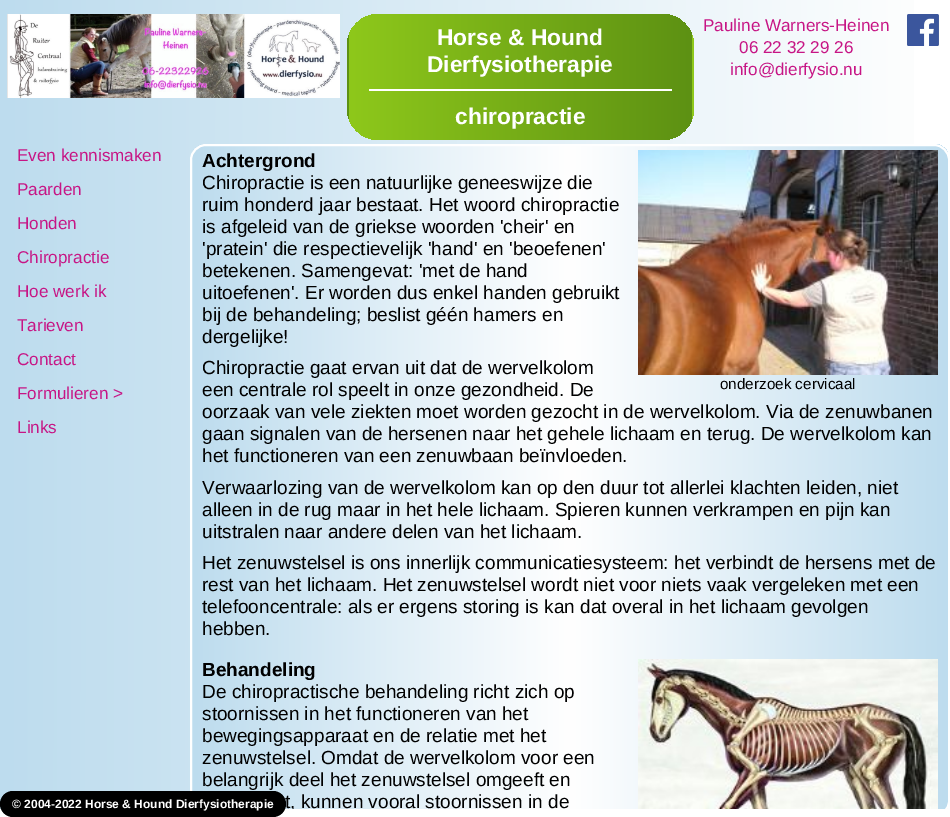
%!PS-Adobe-3.0
%%BoundingBox: 0 0 950 817
%%LanguageLevel: 3
%%Pages: 1
%%EndComments
%%BeginProlog
/setink { dup -16 bitshift 255 div exch dup -8 bitshift 255 and 255 div exch 255 and 255 div setrgbcolor } def
/usefont { [ exch dup neg 0 0 3 -1 roll 0 0 ] selectfont } def
/rrect { 5 dict begin { /r /h /w /y /x } { exch def } forall
  x r add y moveto x w add y 2 copy h add r arct x w add y h add x 1 index r arct
  x y h add x y r arct x y 2 copy exch w add exch r arct closepath end } def
/drawimage { 5 dict begin { /h /w /y /x /name } { exch def } forall
  gsave x y translate w h scale
  w h 8 [w 0 0 h 0 0] name (r) file false 3 colorimage grestore end } def
%%EndProlog
%%BeginSetup
<< /PageSize [950 817] >> setpagedevice
%%EndSetup
%%Page: 1 1
0 817 translate 1 -1 scale
4 setmiterlimit
16#FFFFFF setink
0 0 950 817 rectfill
gsave 0 0 moveto 914 0 lineto 914 809 lineto 0 809 lineto closepath clip newpath
<< /ShadingType 2 /ColorSpace /DeviceRGB /Coords [950 405 0 404] /Extend [true true] /Function << /FunctionType 2 /Domain [0 1] /C0 [1 1 1] /C1 [0.741 0.863 0.933] /N 1 >> >> shfill grestore
(img1.raw) 7 14 333 84 drawimage
gsave
347 14 347 126 32 rrect clip newpath
gsave 347 35 moveto 349 35 lineto 349 119 lineto 347 119 lineto closepath clip newpath
<< /ShadingType 2 /ColorSpace /DeviceRGB /Coords [6 77 349 77] /Extend [true true] /Function << /FunctionType 2 /Domain [0 1] /C0 [0.557 0.784 0.106] /C1 [0.365 0.569 0.075] /N 1 >> >> shfill grestore
gsave 349 14 moveto 692 14 lineto 692 140 lineto 349 140 lineto closepath clip newpath
<< /ShadingType 2 /ColorSpace /DeviceRGB /Coords [349 77 692 77] /Extend [true true] /Function << /FunctionType 2 /Domain [0 1] /C0 [0.557 0.784 0.106] /C1 [0.365 0.569 0.075] /N 1 >> >> shfill grestore
gsave 692 35 moveto 694 35 lineto 694 119 lineto 692 119 lineto closepath clip newpath
<< /ShadingType 2 /ColorSpace /DeviceRGB /Coords [692 77 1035 77] /Extend [true true] /Function << /FunctionType 2 /Domain [0 1] /C0 [0.557 0.784 0.106] /C1 [0.365 0.569 0.075] /N 1 >> >> shfill grestore
grestore
/LiberationSans-Bold 22.75 usefont
437 45 moveto (Horse & Hound) show
427 72 moveto (Dierfysiotherapie) show
369 89 303 2 rectfill
455 124 moveto (chiropractie) show
/LiberationSans-Regular 17.1 usefont
16#C71585 setink
[
    [(Pauline Warners-Heinen) 703 31]
    [(06 22 32 29 26) 739 53]
    [(info@dierfysio.nu) 730 75]
] { aload pop moveto show } forall
(img2.raw) 907 14 32 32 drawimage
[
    [(Even kennismaken) 17 161]
    [(Paarden) 17 195]
    [(Honden) 17 229]
    [(Chiropractie) 17 263]
    [(Hoe werk ik) 17 297]
    [(Tarieven) 17 331]
    [(Contact) 17 365]
    [(Formulieren >) 17 399]
    [(Links) 17 433]
] { aload pop moveto show } forall
gsave
190 144 760 673 16 rrect clip newpath
gsave 192 144 moveto 948 144 lineto 948 809 lineto 192 809 lineto closepath clip newpath
<< /ShadingType 2 /ColorSpace /DeviceRGB /Coords [192 481 948 481] /Extend [true true] /Function << /FunctionType 3 /Domain [0 1] /Functions [<< /FunctionType 2 /Domain [0 1] /C0 [0.741 0.863 0.933] /C1 [1 1 1] /N 1 >> << /FunctionType 2 /Domain [0 1] /C0 [1 1 1] /C1 [0.741 0.863 0.933] /N 1 >>] /Bounds [0.5] /Encode [0 1 0 1] >> >> shfill grestore
grestore
gsave
0 0 950 809 rectclip
16#FFFFFF setink
2 setlinewidth
191 145 758 671 15 rrect stroke
grestore
/LiberationSans-Bold 19 usefont
16#000000 setink
202 167 moveto (Achtergrond) show
/LiberationSans-Regular 19 usefont
[
    [(Chiropractie is een natuurlijke geneeswijze die) 202 189]
    [(ruim honderd jaar bestaat. Het woord chiropractie) 202 211]
    [(is afgeleid van de griekse woorden 'cheir' en) 202 233]
    [('pratein' die respectievelijk 'hand' en 'beoefenen') 202 255]
    [(betekenen. Samengevat: 'met de hand) 202 277]
    [(uitoefenen'. Er worden dus enkel handen gebruikt) 202 299]
    [(bij de behandeling; beslist géén hamers en) 202 321]
    [(dergelijke!) 202 343]
    [(Chiropractie gaat ervan uit dat de wervelkolom) 202 374]
    [(een centrale rol speelt in onze gezondheid. De) 202 396]
] { aload pop moveto show } forall
(img3.raw) 638 150 300 225 drawimage
/LiberationSans-Regular 15.25 usefont
720 389 moveto (onderzoek cervicaal) show
/LiberationSans-Regular 19 usefont
[
    [(oorzaak van vele ziekten moet worden gezocht in de wervelkolom. Via de zenuwbanen) 202 418]
    [(gaan signalen van de hersenen naar het gehele lichaam en terug. De wervelkolom kan) 202 440]
    [(het functioneren van een zenuwbaan beïnvloeden.) 202 462]
    [(Verwaarlozing van de wervelkolom kan op den duur tot allerlei klachten leiden, niet) 202 494]
    [(alleen in de rug maar in het hele lichaam. Spieren kunnen verkrampen en pijn kan) 202 516]
    [(uitstralen naar andere delen van het lichaam.) 202 538]
    [(Het zenuwstelsel is ons innerlijk communicatiesysteem: het verbindt de hersens met de) 202 569]
    [(rest van het lichaam. Het zenuwstelsel wordt niet voor niets vaak vergeleken met een) 202 591]
    [(telefooncentrale: als er ergens storing is kan dat overal in het lichaam gevolgen) 202 613]
    [(hebben.) 202 635]
] { aload pop moveto show } forall
/LiberationSans-Bold 19 usefont
202 676 moveto (Behandeling) show
(img4.raw) 638 659 300 150 drawimage
/LiberationSans-Regular 19 usefont
[
    [(De chiropractische behandeling richt zich op) 202 698]
    [(stoornissen in het functioneren van het) 202 720]
    [(bewegingsapparaat en de relatie met het) 202 742]
    [(zenuwstelsel. Omdat de wervelkolom voor een) 202 764]
    [(belangrijk deel het zenuwstelsel omgeeft en) 202 786]
] { aload pop moveto show } forall
gsave
0 0 950 809 rectclip
285 808 moveto (t, kunnen vooral stoornissen in de) show
grestore
0 791 286 26 13 rrect fill
/LiberationSans-Bold 12 usefont
16#FFFFFF setink
12 808 moveto (© 2004-2022 Horse & Hound Dierfysiotherapie) show
showpage
%%EOF
